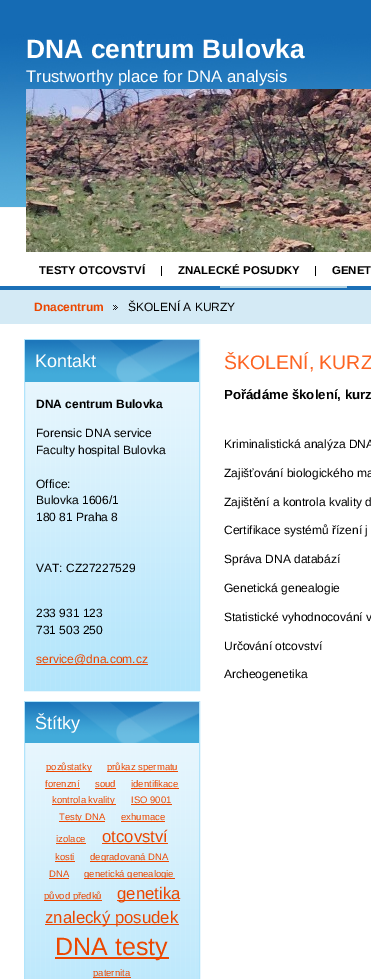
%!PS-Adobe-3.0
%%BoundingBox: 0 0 371 979
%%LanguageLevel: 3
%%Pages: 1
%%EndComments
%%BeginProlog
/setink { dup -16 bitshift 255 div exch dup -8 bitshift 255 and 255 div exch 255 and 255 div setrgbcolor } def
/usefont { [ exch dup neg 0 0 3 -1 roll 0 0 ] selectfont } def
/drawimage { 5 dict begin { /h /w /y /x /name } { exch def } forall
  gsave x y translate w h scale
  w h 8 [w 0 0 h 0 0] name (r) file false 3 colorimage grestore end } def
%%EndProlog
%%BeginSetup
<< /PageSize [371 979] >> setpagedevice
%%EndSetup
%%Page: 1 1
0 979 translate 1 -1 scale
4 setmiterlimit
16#FFFFFF setink
0 0 371 979 rectfill
16#156BB4 setink
0 0 371 34 rectfill
(img1.raw) 0 34 371 220 drawimage
/LiberationSans-Bold 26.4 usefont
16#FFFFFF setink
26 58 moveto (DNA centrum Bulovka) show
/LiberationSans-Regular 16.75 usefont
26 82 moveto (Trustworthy place for DNA analysis) show
(img2.raw) 26 89 345 163 drawimage
/LiberationSans-Bold 11.4 usefont
16#000000 setink
39 274 moveto (TESTY OTCOVSTVÍ) show
161 266 1 10 rectfill
178 274 moveto (ZNALECKÉ POSUDKY) show
315 266 1 10 rectfill
332 274 moveto (GENET) show
[
    [0 286 371 4 16#1C70B7]
    [220 286 127 2 16#ACD1E4]
    [0 290 371 34 16#D4EAF5]
] { aload pop setink rectfill } forall
/LiberationSans-Bold 12 usefont
16#EC4700 setink
34 311 moveto (Dnacentrum) show
(img3.raw) 113 305 5 5 drawimage
/LiberationSans-Regular 12 usefont
16#000000 setink
128 311 moveto (ŠKOLENÍ A KURZY) show
(img4.raw) 25 382 174 308 drawimage
16#B1E4FB setink
24.5 339.5 175 351 rectstroke
(img5.raw) 25 340 174 42 drawimage
/LiberationSans-Regular 18 usefont
16#FFFFFF setink
35 367 moveto (Kontakt) show
/LiberationSans-Bold 12 usefont
16#000000 setink
36 408 moveto (DNA centrum Bulovka) show
/LiberationSans-Regular 12 usefont
[
    [(Forensic DNA service) 36 437]
    [(Faculty hospital Bulovka) 36 454]
    [(Office:) 36 488]
    [(Bulovka 1606/1) 36 504]
    [(180 81 Praha 8) 36 521]
    [(VAT: CZ27227529) 36 572]
    [(233 931 123) 36 617]
    [(731 503 250) 36 634]
] { aload pop moveto show } forall
16#EC4700 setink
36 664 112 1 rectfill
36 663 moveto (service@dna.com.cz) show
(img6.raw) 25 743 174 236 drawimage
16#B1E4FB setink
24.5 701.5 175 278 rectstroke
(img7.raw) 25 702 174 41 drawimage
/LiberationSans-Regular 18 usefont
16#FFFFFF setink
35 729 moveto (Štítky) show
16#EC4700 setink
46 771 46 1 rectfill
/LiberationSans-Regular 9.5 usefont
46 770 moveto (pozůstatky) show
107 771 71 1 rectfill
107 770 moveto (průkaz spermatu) show
45 787 moveto (forenzní) show
45 788 35 1 rectfill
95 787 moveto (soud) show
95 788 21 1 rectfill
131 787 moveto (identifikace) show
131 788 48 1 rectfill
52 804 64 1 rectfill
52 803 moveto (kontrola kvality) show
131 803 moveto (ISO 9001) show
131 804 41 1 rectfill
59 821 46 1 rectfill
59 820 moveto (Testy DNA) show
121 820 moveto (exhumace) show
121 821 44 1 rectfill
56 842 moveto (izolace) show
56 843 30 1 rectfill
/LiberationSans-Regular 16.75 usefont
102 842 moveto (otcovství) show
102 843 66 1 rectfill
/LiberationSans-Regular 9.5 usefont
55 860 moveto (kosti) show
55 861 20 1 rectfill
90 861 79 1 rectfill
90 860 moveto (degradovaná DNA) show
49 877 moveto (DNA) show
49 878 20 1 rectfill
84 878 91 1 rectfill
84 877 moveto (genetická genealogie) show
44 900 58 1 rectfill
44 899 moveto (původ předků) show
117 900 63 1 rectfill
/LiberationSans-Regular 16.75 usefont
117 899 moveto (genetika) show
45 924 134 1 rectfill
45 923 moveto (znalecký posudek) show
55 957 114 2 rectfill
/LiberationSans-Regular 25 usefont
55 955 moveto (DNA testy) show
93 977 38 1 rectfill
/LiberationSans-Regular 9.5 usefont
93 976 moveto (paternita) show
/LiberationSans-Regular 19.5 usefont
16#FD6422 setink
224 369 moveto (ŠKOLENÍ, KURZ) show
/LiberationSans-Bold 13.25 usefont
16#000000 setink
224 399 moveto (Pořádáme školení, kurz) show
/LiberationSans-Regular 12 usefont
[
    [(Kriminalistická analýza DNA) 224 448]
    [(Zajišťování biologického ma) 224 477]
    [(Zajištění a kontrola kvality d) 224 506]
    [(Certifikace systémů řízení j) 224 534]
    [(Správa DNA databází) 224 563]
    [(Genetická genealogie) 224 592]
    [(Statistické vyhodnocování v) 224 621]
    [(Určování otcovství) 224 650]
    [(Archeogenetika) 224 678]
] { aload pop moveto show } forall
showpage
%%EOF
